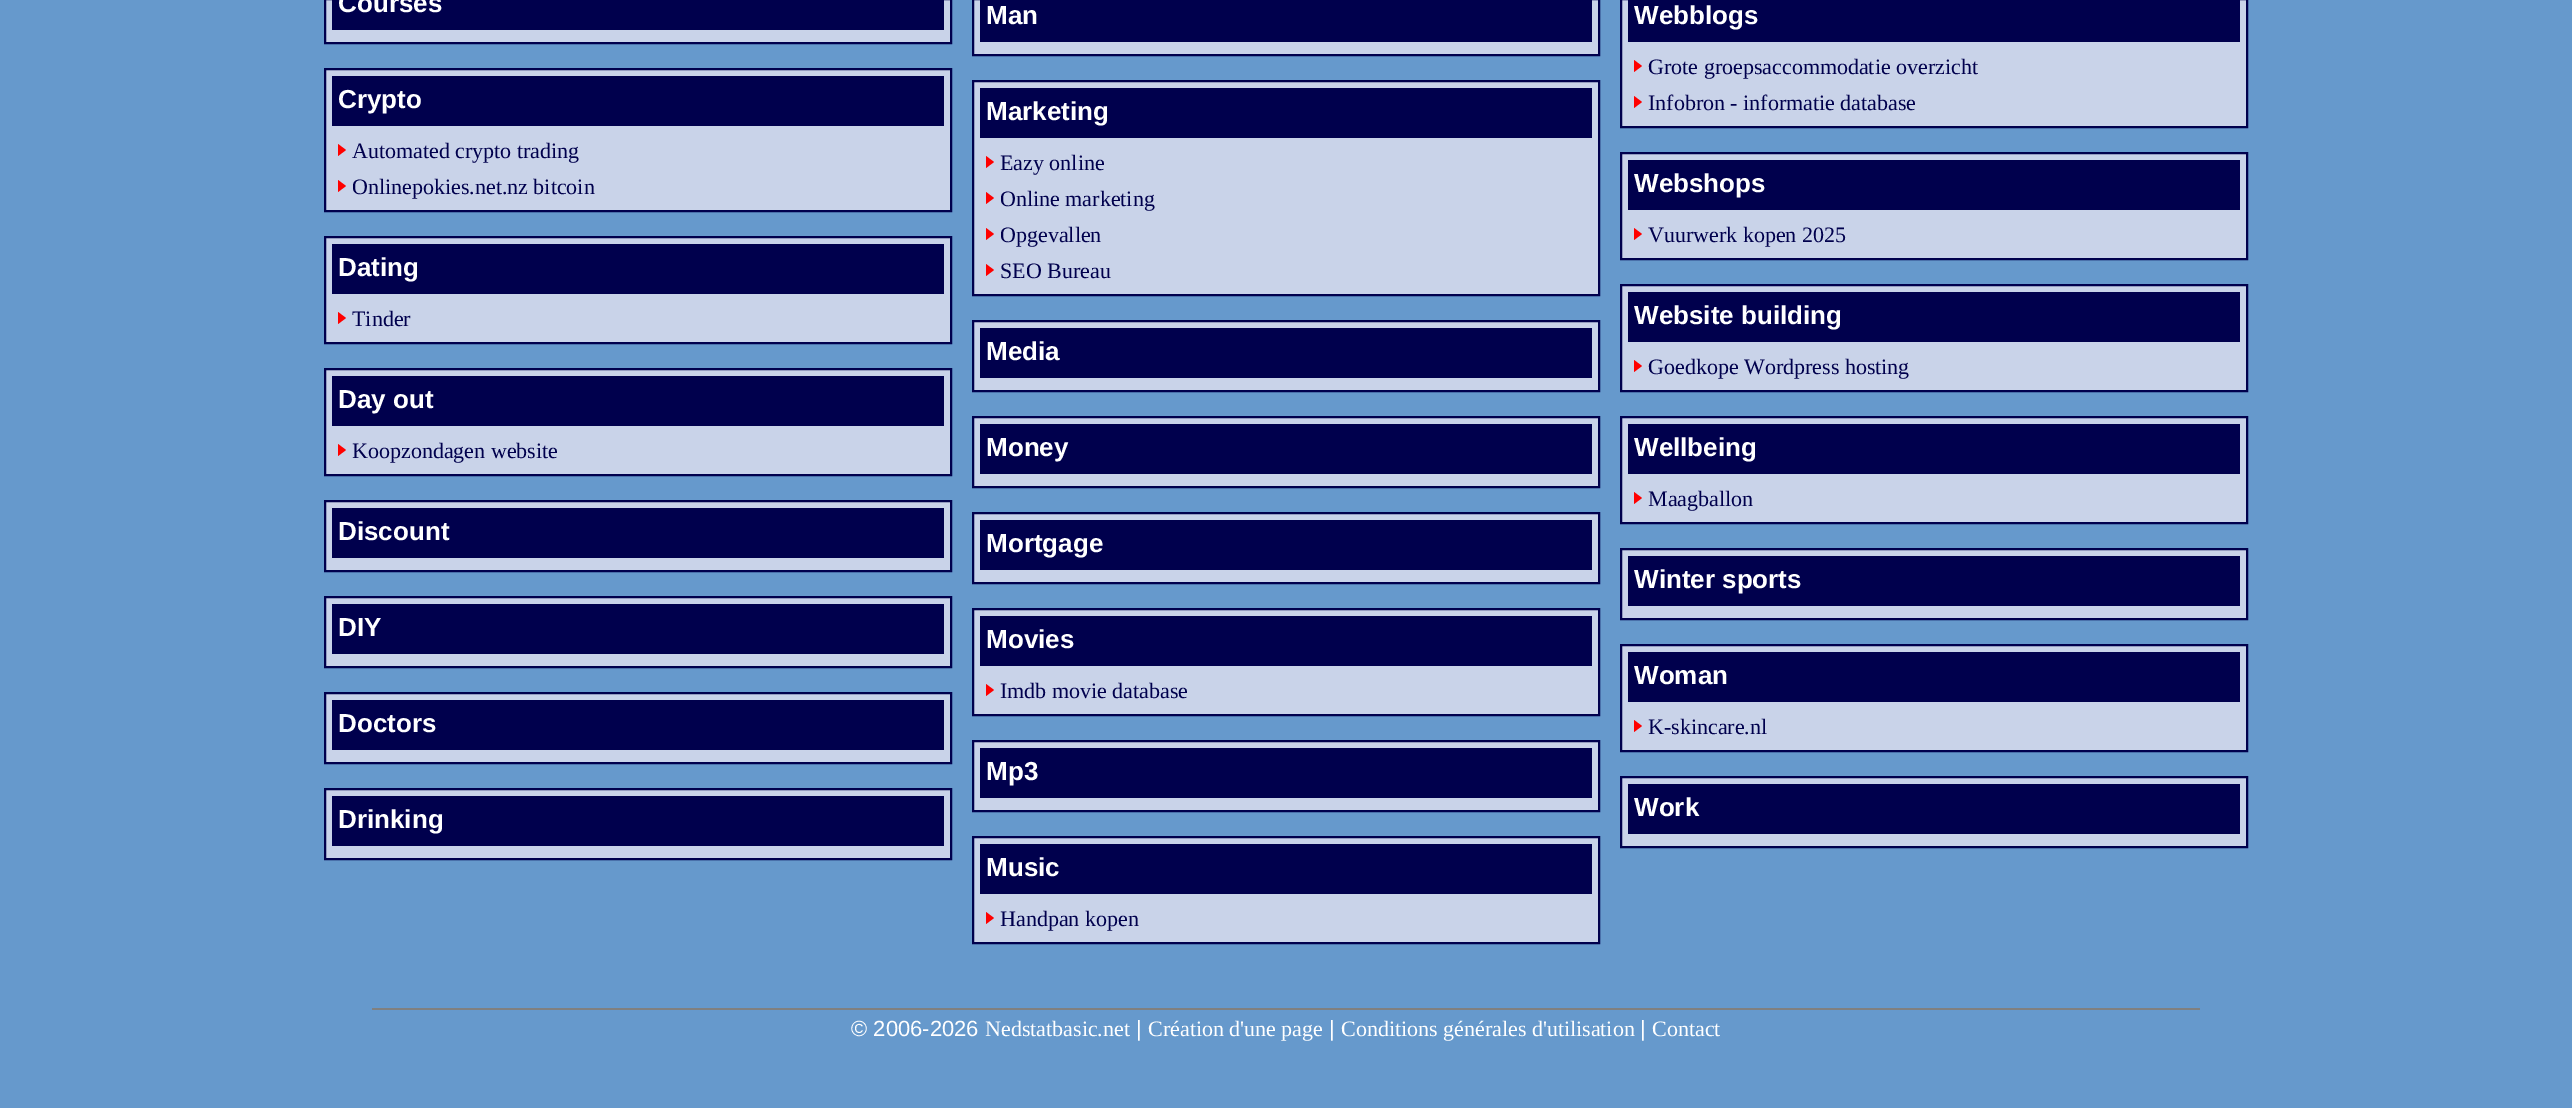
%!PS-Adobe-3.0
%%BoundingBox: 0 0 2572 1108
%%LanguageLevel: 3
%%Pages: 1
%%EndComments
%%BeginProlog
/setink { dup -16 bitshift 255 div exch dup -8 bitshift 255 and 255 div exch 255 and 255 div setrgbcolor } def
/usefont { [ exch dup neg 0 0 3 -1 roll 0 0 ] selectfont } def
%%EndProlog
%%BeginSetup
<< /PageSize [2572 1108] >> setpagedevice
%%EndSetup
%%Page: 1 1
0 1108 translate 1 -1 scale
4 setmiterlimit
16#6699CC setink
0 0 2572 1108 rectfill
16#C9D3E9 setink
325 -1 moveto 951 -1 lineto 951 43 lineto 325 43 lineto closepath gsave fill grestore
16#00004D setink
2 setlinewidth
stroke
332 0 612 30 rectfill
/LiberationSans-Bold 26 usefont
16#FFFFFF setink
338 12 moveto (Courses) show
16#C9D3E9 setink
973 -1 moveto 1599 -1 lineto 1599 55 lineto 973 55 lineto closepath gsave fill grestore
16#00004D setink
stroke
980 0 612 42 rectfill
16#FFFFFF setink
986 24 moveto (Man) show
16#C9D3E9 setink
1621 -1 moveto 2247 -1 lineto 2247 127 lineto 1621 127 lineto closepath gsave fill grestore
16#00004D setink
stroke
1628 0 612 42 rectfill
16#FFFFFF setink
1634 24 moveto (Webblogs) show
16#FF0000 setink
1634 72 moveto 1634 60 lineto 1642 66 lineto closepath fill
/LiberationSerif-Regular 22 usefont
16#00004D setink
1648 74 moveto (Grote groepsaccommodatie overzicht) show
16#FF0000 setink
1634 108 moveto 1634 96 lineto 1642 102 lineto closepath fill
16#00004D setink
1648 110 moveto (Infobron - informatie database) show
16#C9D3E9 setink
325 69 moveto 951 69 lineto 951 211 lineto 325 211 lineto closepath gsave fill grestore
16#00004D setink
stroke
332 76 612 50 rectfill
/LiberationSans-Bold 26 usefont
16#FFFFFF setink
338 108 moveto (Crypto) show
16#FF0000 setink
338 156 moveto 338 144 lineto 346 150 lineto closepath fill
/LiberationSerif-Regular 22 usefont
16#00004D setink
352 158 moveto (Automated crypto trading) show
16#FF0000 setink
338 192 moveto 338 180 lineto 346 186 lineto closepath fill
16#00004D setink
352 194 moveto (Onlinepokies.net.nz bitcoin) show
16#C9D3E9 setink
973 81 moveto 1599 81 lineto 1599 295 lineto 973 295 lineto closepath gsave fill grestore
16#00004D setink
stroke
980 88 612 50 rectfill
/LiberationSans-Bold 26 usefont
16#FFFFFF setink
986 120 moveto (Marketing) show
16#FF0000 setink
986 168 moveto 986 156 lineto 994 162 lineto closepath fill
/LiberationSerif-Regular 22 usefont
16#00004D setink
1000 170 moveto (Eazy online) show
16#FF0000 setink
986 204 moveto 986 192 lineto 994 198 lineto closepath fill
16#00004D setink
1000 206 moveto (Online marketing) show
16#FF0000 setink
986 240 moveto 986 228 lineto 994 234 lineto closepath fill
16#00004D setink
1000 242 moveto (Opgevallen) show
16#FF0000 setink
986 276 moveto 986 264 lineto 994 270 lineto closepath fill
16#00004D setink
1000 278 moveto (SEO Bureau) show
16#C9D3E9 setink
1621 153 moveto 2247 153 lineto 2247 259 lineto 1621 259 lineto closepath gsave fill grestore
16#00004D setink
stroke
1628 160 612 50 rectfill
/LiberationSans-Bold 26 usefont
16#FFFFFF setink
1634 192 moveto (Webshops) show
16#FF0000 setink
1634 240 moveto 1634 228 lineto 1642 234 lineto closepath fill
/LiberationSerif-Regular 22 usefont
16#00004D setink
1648 242 moveto (Vuurwerk kopen 2025) show
16#C9D3E9 setink
325 237 moveto 951 237 lineto 951 343 lineto 325 343 lineto closepath gsave fill grestore
16#00004D setink
stroke
332 244 612 50 rectfill
/LiberationSans-Bold 26 usefont
16#FFFFFF setink
338 276 moveto (Dating) show
16#FF0000 setink
338 324 moveto 338 312 lineto 346 318 lineto closepath fill
/LiberationSerif-Regular 22 usefont
16#00004D setink
352 326 moveto (Tinder) show
16#C9D3E9 setink
973 321 moveto 1599 321 lineto 1599 391 lineto 973 391 lineto closepath gsave fill grestore
16#00004D setink
stroke
980 328 612 50 rectfill
/LiberationSans-Bold 26 usefont
16#FFFFFF setink
986 360 moveto (Media) show
16#C9D3E9 setink
1621 285 moveto 2247 285 lineto 2247 391 lineto 1621 391 lineto closepath gsave fill grestore
16#00004D setink
stroke
1628 292 612 50 rectfill
16#FFFFFF setink
1634 324 moveto (Website building) show
16#FF0000 setink
1634 372 moveto 1634 360 lineto 1642 366 lineto closepath fill
/LiberationSerif-Regular 22 usefont
16#00004D setink
1648 374 moveto (Goedkope Wordpress hosting) show
16#C9D3E9 setink
325 369 moveto 951 369 lineto 951 475 lineto 325 475 lineto closepath gsave fill grestore
16#00004D setink
stroke
332 376 612 50 rectfill
/LiberationSans-Bold 26 usefont
16#FFFFFF setink
338 408 moveto (Day out) show
16#FF0000 setink
338 456 moveto 338 444 lineto 346 450 lineto closepath fill
/LiberationSerif-Regular 22 usefont
16#00004D setink
352 458 moveto (Koopzondagen website) show
16#C9D3E9 setink
973 417 moveto 1599 417 lineto 1599 487 lineto 973 487 lineto closepath gsave fill grestore
16#00004D setink
stroke
980 424 612 50 rectfill
/LiberationSans-Bold 26 usefont
16#FFFFFF setink
986 456 moveto (Money) show
16#C9D3E9 setink
1621 417 moveto 2247 417 lineto 2247 523 lineto 1621 523 lineto closepath gsave fill grestore
16#00004D setink
stroke
1628 424 612 50 rectfill
16#FFFFFF setink
1634 456 moveto (Wellbeing) show
16#FF0000 setink
1634 504 moveto 1634 492 lineto 1642 498 lineto closepath fill
/LiberationSerif-Regular 22 usefont
16#00004D setink
1648 506 moveto (Maagballon) show
16#C9D3E9 setink
325 501 moveto 951 501 lineto 951 571 lineto 325 571 lineto closepath gsave fill grestore
16#00004D setink
stroke
332 508 612 50 rectfill
/LiberationSans-Bold 26 usefont
16#FFFFFF setink
338 540 moveto (Discount) show
16#C9D3E9 setink
973 513 moveto 1599 513 lineto 1599 583 lineto 973 583 lineto closepath gsave fill grestore
16#00004D setink
stroke
980 520 612 50 rectfill
16#FFFFFF setink
986 552 moveto (Mortgage) show
16#C9D3E9 setink
1621 549 moveto 2247 549 lineto 2247 619 lineto 1621 619 lineto closepath gsave fill grestore
16#00004D setink
stroke
1628 556 612 50 rectfill
16#FFFFFF setink
1634 588 moveto (Winter sports) show
16#C9D3E9 setink
325 597 moveto 951 597 lineto 951 667 lineto 325 667 lineto closepath gsave fill grestore
16#00004D setink
stroke
332 604 612 50 rectfill
16#FFFFFF setink
338 636 moveto (DIY) show
16#C9D3E9 setink
325 693 moveto 951 693 lineto 951 763 lineto 325 763 lineto closepath gsave fill grestore
16#00004D setink
stroke
332 700 612 50 rectfill
16#FFFFFF setink
338 732 moveto (Doctors) show
16#C9D3E9 setink
973 609 moveto 1599 609 lineto 1599 715 lineto 973 715 lineto closepath gsave fill grestore
16#00004D setink
stroke
980 616 612 50 rectfill
16#FFFFFF setink
986 648 moveto (Movies) show
16#FF0000 setink
986 696 moveto 986 684 lineto 994 690 lineto closepath fill
/LiberationSerif-Regular 22 usefont
16#00004D setink
1000 698 moveto (Imdb movie database) show
16#C9D3E9 setink
1621 645 moveto 2247 645 lineto 2247 751 lineto 1621 751 lineto closepath gsave fill grestore
16#00004D setink
stroke
1628 652 612 50 rectfill
/LiberationSans-Bold 26 usefont
16#FFFFFF setink
1634 684 moveto (Woman) show
16#FF0000 setink
1634 732 moveto 1634 720 lineto 1642 726 lineto closepath fill
/LiberationSerif-Regular 22 usefont
16#00004D setink
1648 734 moveto (K-skincare.nl) show
16#C9D3E9 setink
973 741 moveto 1599 741 lineto 1599 811 lineto 973 811 lineto closepath gsave fill grestore
16#00004D setink
stroke
980 748 612 50 rectfill
/LiberationSans-Bold 26 usefont
16#FFFFFF setink
986 780 moveto (Mp3) show
16#C9D3E9 setink
1621 777 moveto 2247 777 lineto 2247 847 lineto 1621 847 lineto closepath gsave fill grestore
16#00004D setink
stroke
1628 784 612 50 rectfill
16#FFFFFF setink
1634 816 moveto (Work) show
16#C9D3E9 setink
325 789 moveto 951 789 lineto 951 859 lineto 325 859 lineto closepath gsave fill grestore
16#00004D setink
stroke
332 796 612 50 rectfill
16#FFFFFF setink
338 828 moveto (Drinking) show
16#C9D3E9 setink
973 837 moveto 1599 837 lineto 1599 943 lineto 973 943 lineto closepath gsave fill grestore
16#00004D setink
stroke
980 844 612 50 rectfill
16#FFFFFF setink
986 876 moveto (Music) show
16#FF0000 setink
986 924 moveto 986 912 lineto 994 918 lineto closepath fill
/LiberationSerif-Regular 22 usefont
16#00004D setink
1000 926 moveto (Handpan kopen) show
16#808080 setink
372 1008 1828 2 rectfill
/LiberationSans-Regular 22 usefont
16#FFFFFF setink
851 1036 moveto (© 2006-2026) show
/LiberationSerif-Regular 22 usefont
985 1036 moveto (Nedstatbasic.net) show
/LiberationSans-Regular 22 usefont
1136 1036 moveto (|) show
/LiberationSerif-Regular 22 usefont
1148 1036 moveto (Création d'une page) show
/LiberationSans-Regular 22 usefont
1329 1036 moveto (|) show
/LiberationSerif-Regular 22 usefont
1341 1036 moveto (Conditions générales d'utilisation) show
/LiberationSans-Regular 22 usefont
1640 1036 moveto (|) show
/LiberationSerif-Regular 22 usefont
1652 1036 moveto (Contact) show
showpage
%%EOF
